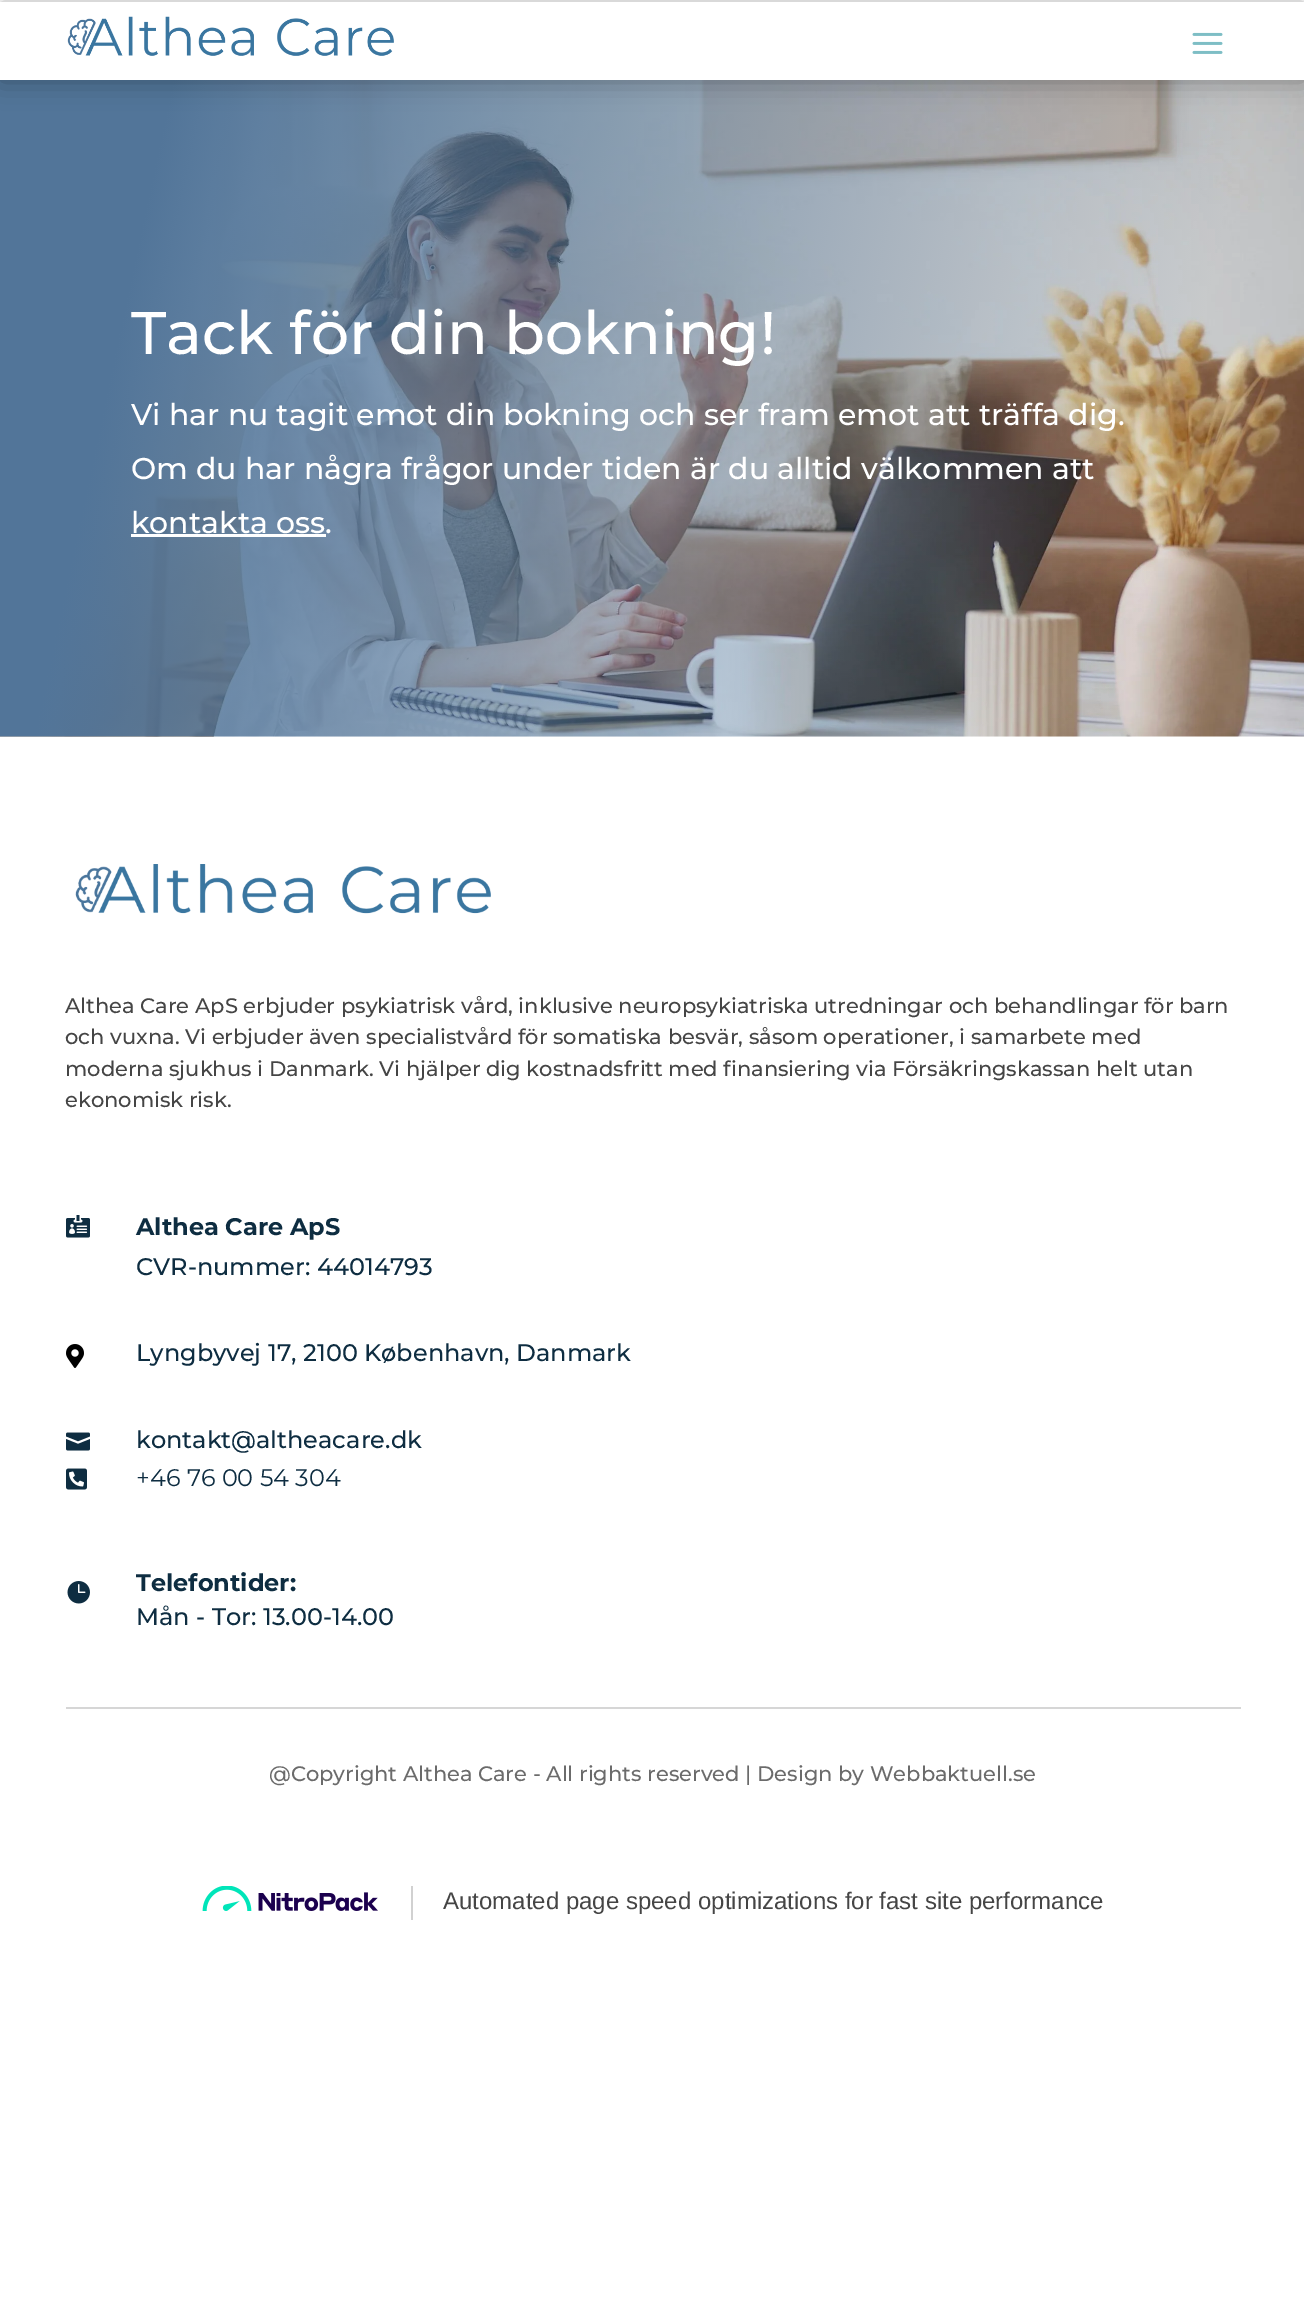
%!PS-Adobe-3.0
%%BoundingBox: 0 0 1304 2322
%%LanguageLevel: 3
%%Pages: 1
%%EndComments
%%BeginProlog
/setink { dup -16 bitshift 255 div exch dup -8 bitshift 255 and 255 div exch 255 and 255 div setrgbcolor } def
/usefont { [ exch dup neg 0 0 3 -1 roll 0 0 ] selectfont } def
/setalpha { dup .setfillconstantalpha .setstrokeconstantalpha } def
/rrect { 5 dict begin { /r /h /w /y /x } { exch def } forall
  x r add y moveto x w add y 2 copy h add r arct x w add y h add x 1 index r arct
  x y h add x y r arct x y 2 copy exch w add exch r arct closepath end } def
/softshadow { 12 dict begin { /a /b /q /h /w /y /x } { exch def } forall gsave /was 0 def
  9 -2 -9 { dup b mul 4 div /e exch def 1 sub .425 mul 2.718 exch exp 1 add a .99 .min exch div /now exch def
    1 1 now sub 1 was sub div sub setalpha /was now def
    w h .min e 2 mul add 0 gt { x e sub y e sub w e 2 mul add h e 2 mul add
      q e add b .6 mul add w h .min 2 div e add .min 0 .max rrect fill } if } for grestore end } def
/drawimage { 5 dict begin { /h /w /y /x /name } { exch def } forall
  gsave x y translate w h scale
  w h 8 [w 0 0 h 0 0] name (r) file false 3 colorimage grestore end } def
%%EndProlog
%%BeginSetup
<< /PageSize [1304 2322] /PageUsesTransparency true >> setpagedevice
%%EndSetup
%%Page: 1 1
0 .pushpdf14devicefilter
0 2322 translate 1 -1 scale
4 setmiterlimit
16#FFFFFF setink
0 0 1304 2322 rectfill
(img3.raw) 0 80 1304 657 drawimage
16#000000 setink
0 3 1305 78 0 13.5 0.3 softshadow
16#FFFFFF setink
0 2 1304 78 rectfill
(img1.raw) 67 16 327 40 drawimage
(img2.raw) 1192 32 31 22 drawimage
/Montserrat-Medium 60 usefont
131 354 moveto (Tack för din bokning!) show
/Montserrat-Medium 30 usefont
[
    [(Vi har nu tagit emot din bokning och ser fram emot att träffa dig.) 131 425]
    [(Om du har några frågor under tiden är du alltid välkommen att) 131 479]
    [(kontakta oss.) 131 533]
] { aload pop moveto show } forall
131 534 195 3 rectfill
(img4.raw) 75 864 416 50 drawimage
/Montserrat-Medium 21 usefont
16#454545 setink
[
    [(Althea Care ApS erbjuder psykiatrisk vård, inklusive neuropsykiatriska utredningar och behandlingar för barn) 65 1013]
    [(och vuxna. Vi erbjuder även specialistvård för somatiska besvär, såsom operationer, i samarbete med) 65 1044]
    [(moderna sjukhus i Danmark. Vi hjälper dig kostnadsfritt med finansiering via Försäkringskassan helt utan) 65 1076]
    [(ekonomisk risk.) 65 1107]
] { aload pop moveto show } forall
(img5.raw) 66 1215 24 23 drawimage
/Montserrat-Bold 24 usefont
16#0E2D41 setink
136 1235 moveto (Althea Care ApS) show
/Montserrat-Medium 24 usefont
136 1275 moveto (CVR-nummer: 44014793) show
(img6.raw) 66 1344 18 24 drawimage
136 1361 moveto (Lyngbyvej 17, 2100 København, Danmark) show
(img7.raw) 66 1432 24 19 drawimage
136 1448 moveto (kontakt@altheacare.dk) show
(img8.raw) 66 1468 21 22 drawimage
/Montserrat-Regular 24 usefont
136 1486 moveto (+46 76 00 54 304) show
(img9.raw) 67 1581 23 23 drawimage
/Montserrat-Bold 24 usefont
136 1591 moveto (Telefontider:) show
/Montserrat-Medium 24 usefont
136 1625 moveto (Mån - Tor: 13.00-14.00) show
16#D6D6D6 setink
66 1707 1175 2 rectfill
/Montserrat-Medium 21 usefont
16#6B6B6B setink
269 1781 moveto (@Copyright Althea Care - All rights reserved | Design by Webbaktuell.se) show
16#D1D1D1 setink
411 1886 2 34 rectfill
(img10.raw) 202 1886 176 25 drawimage
/LiberationSans-Regular 24 usefont
16#454545 setink
443 1909 moveto (Automated page speed optimizations for fast site performance) show
.poppdf14devicefilter showpage
%%EOF
